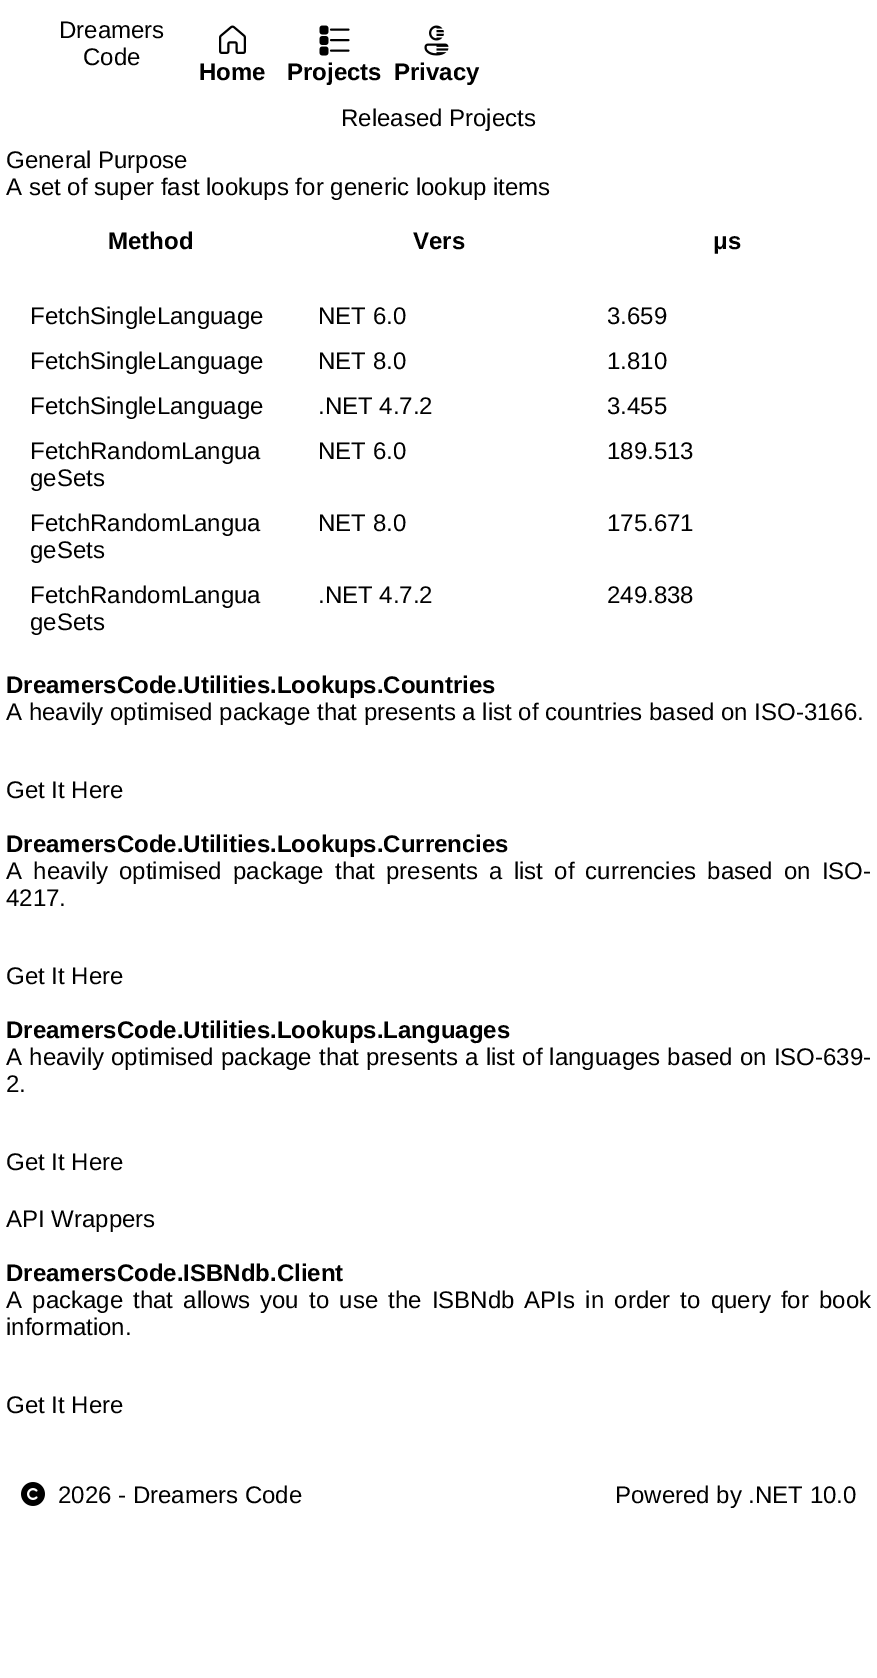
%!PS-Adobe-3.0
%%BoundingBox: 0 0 877 1678
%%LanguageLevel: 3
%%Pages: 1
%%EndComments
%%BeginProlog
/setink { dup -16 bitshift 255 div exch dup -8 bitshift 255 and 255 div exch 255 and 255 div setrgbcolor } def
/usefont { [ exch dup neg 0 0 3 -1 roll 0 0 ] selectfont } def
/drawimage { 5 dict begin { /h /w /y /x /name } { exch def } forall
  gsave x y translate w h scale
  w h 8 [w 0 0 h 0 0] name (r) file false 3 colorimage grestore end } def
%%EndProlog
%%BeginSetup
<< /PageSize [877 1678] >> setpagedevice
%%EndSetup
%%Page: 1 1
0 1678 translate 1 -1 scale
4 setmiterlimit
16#FFFFFF setink
0 0 877 1678 rectfill
/LiberationSans-Regular 24 usefont
16#000000 setink
59 38 moveto (Dreamers) show
83 65 moveto (Code) show
(img1.raw) 219 25 27 29 drawimage
/LiberationSans-Bold 24 usefont
199 80 moveto (Home) show
(img2.raw) 319 25 31 31 drawimage
287 80 moveto (Projects) show
(img3.raw) 424 25 25 31 drawimage
394 80 moveto (Privacy) show
/LiberationSans-Regular 24 usefont
[
    [(Released Projects) 341 126]
    [(General Purpose) 6 168]
    [(A set of super fast lookups for generic lookup items) 6 195]
] { aload pop moveto show } forall
/LiberationSans-Bold 24 usefont
[
    [(Method) 108 249]
    [(Vers) 413 249]
    [(μs) 713 249]
] { aload pop moveto show } forall
/LiberationSans-Regular 24 usefont
[
    [(FetchSingleLanguage) 30 324]
    [(NET 6.0) 318 324]
    [(3.659) 607 324]
    [(FetchSingleLanguage) 30 369]
    [(NET 8.0) 318 369]
    [(1.810) 607 369]
    [(FetchSingleLanguage) 30 414]
    [(.NET 4.7.2) 318 414]
    [(3.455) 607 414]
    [(FetchRandomLangua) 30 459]
    [(geSets) 30 486]
    [(NET 6.0) 318 459]
    [(189.513) 607 459]
    [(FetchRandomLangua) 30 531]
    [(geSets) 30 558]
    [(NET 8.0) 318 531]
    [(175.671) 607 531]
    [(FetchRandomLangua) 30 603]
    [(geSets) 30 630]
    [(.NET 4.7.2) 318 603]
    [(249.838) 607 603]
] { aload pop moveto show } forall
/LiberationSans-Bold 24 usefont
6 693 moveto (DreamersCode.Utilities.Lookups.Countries) show
/LiberationSans-Regular 24 usefont
6 720 moveto (A heavily optimised package that presents a list of countries based on ISO-3166.) show
6 798 moveto (Get It Here) show
/LiberationSans-Bold 24 usefont
6 852 moveto (DreamersCode.Utilities.Lookups.Currencies) show
/LiberationSans-Regular 24 usefont
6 879 moveto 4.5 0 32 (A heavily optimised package that presents a list of currencies based on ISO-) widthshow
6 906 moveto (4217.) show
6 984 moveto (Get It Here) show
/LiberationSans-Bold 24 usefont
6 1038 moveto (DreamersCode.Utilities.Lookups.Languages) show
/LiberationSans-Regular 24 usefont
6 1065 moveto 0.5 0 32 (A heavily optimised package that presents a list of languages based on ISO-639-) widthshow
[
    [(2.) 6 1092]
    [(Get It Here) 6 1170]
    [(API Wrappers) 6 1227]
] { aload pop moveto show } forall
/LiberationSans-Bold 24 usefont
6 1281 moveto (DreamersCode.ISBNdb.Client) show
/LiberationSans-Regular 24 usefont
6 1308 moveto 3.5 0 32 (A package that allows you to use the ISBNdb APIs in order to query for book) widthshow
6 1335 moveto (information.) show
6 1413 moveto (Get It Here) show
(img4.raw) 21 1482 24 24 drawimage
58 1503 moveto (2026 - Dreamers Code) show
615 1503 moveto (Powered by .NET 10.0) show
showpage
%%EOF
